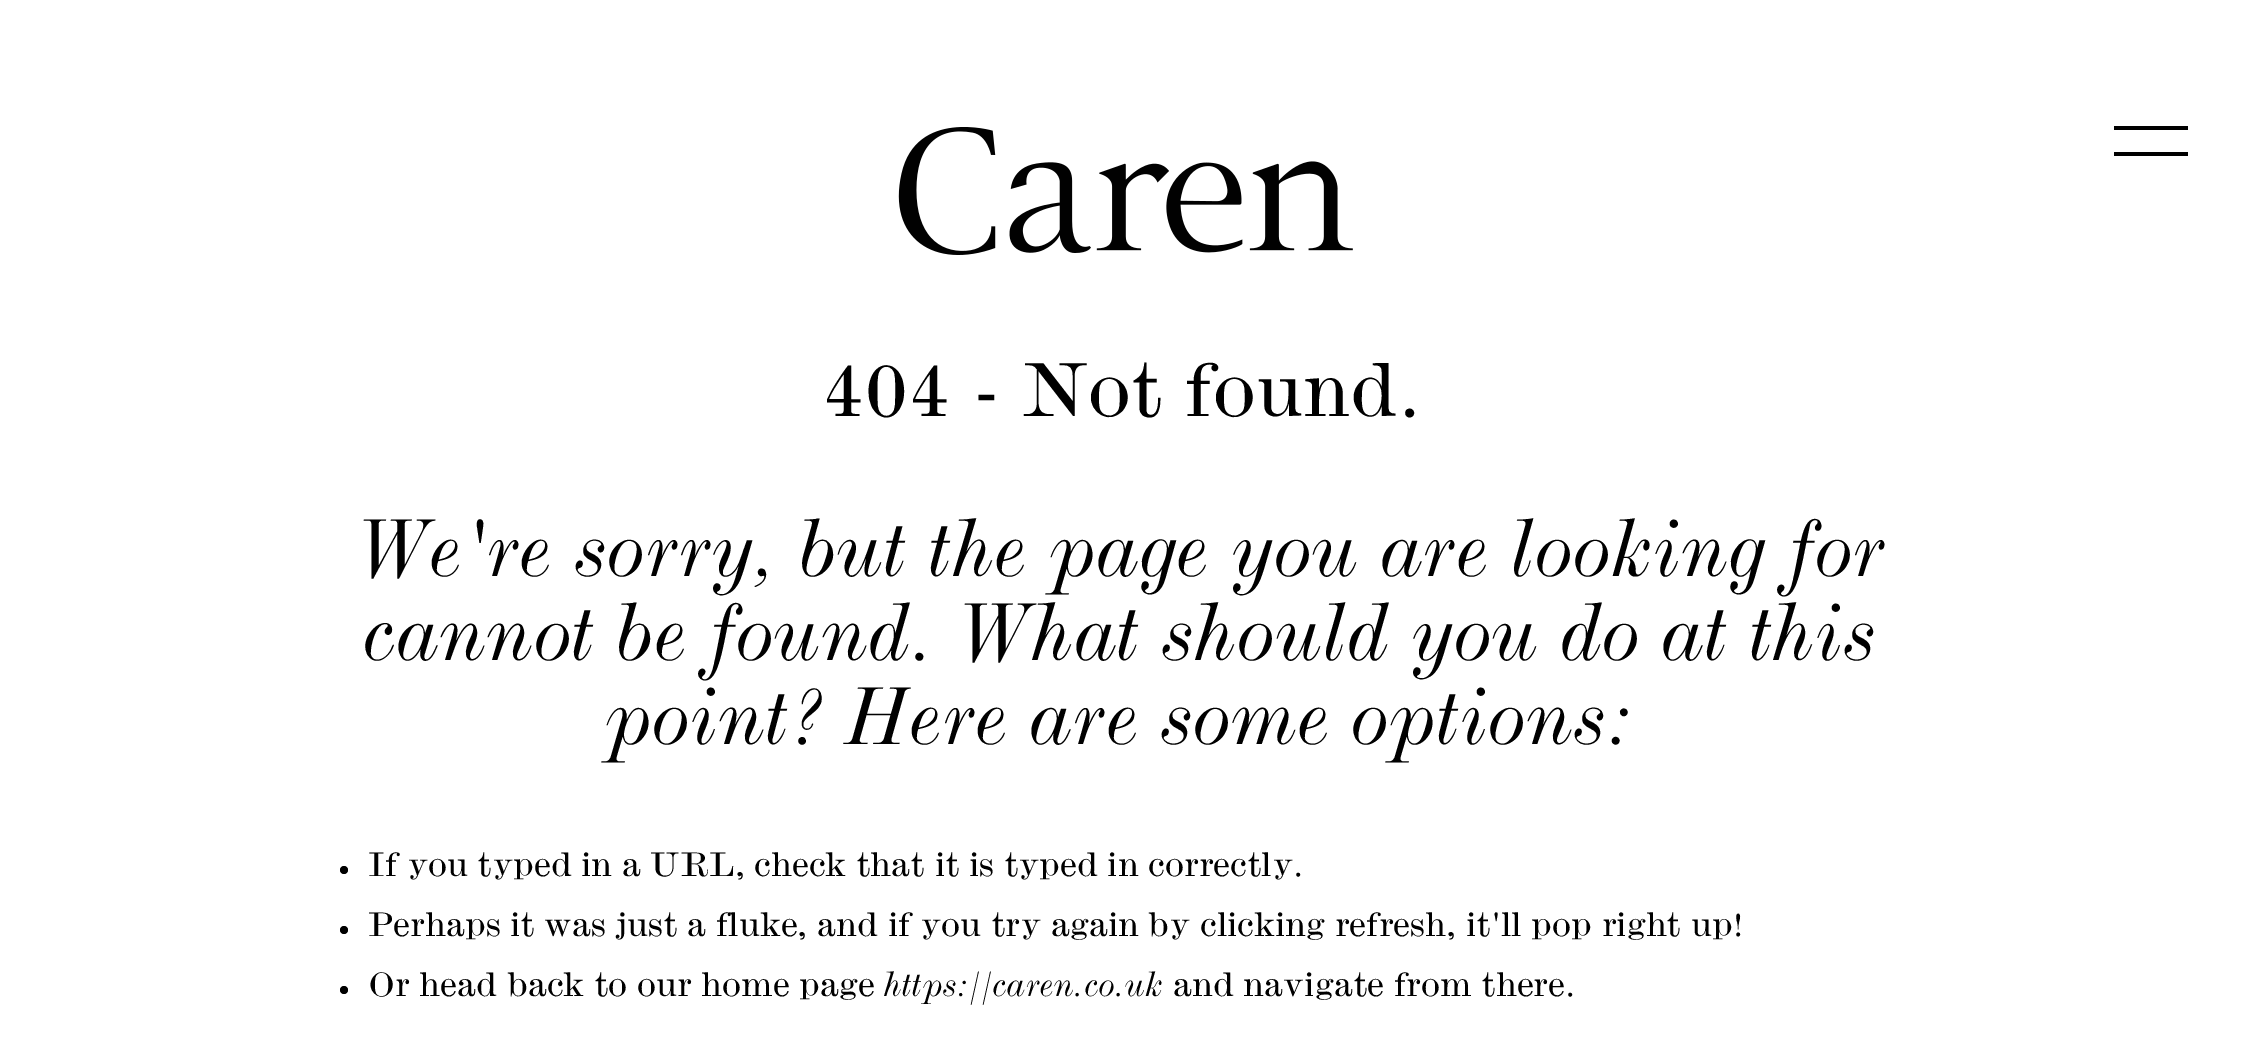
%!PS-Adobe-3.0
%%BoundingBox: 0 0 2242 1051
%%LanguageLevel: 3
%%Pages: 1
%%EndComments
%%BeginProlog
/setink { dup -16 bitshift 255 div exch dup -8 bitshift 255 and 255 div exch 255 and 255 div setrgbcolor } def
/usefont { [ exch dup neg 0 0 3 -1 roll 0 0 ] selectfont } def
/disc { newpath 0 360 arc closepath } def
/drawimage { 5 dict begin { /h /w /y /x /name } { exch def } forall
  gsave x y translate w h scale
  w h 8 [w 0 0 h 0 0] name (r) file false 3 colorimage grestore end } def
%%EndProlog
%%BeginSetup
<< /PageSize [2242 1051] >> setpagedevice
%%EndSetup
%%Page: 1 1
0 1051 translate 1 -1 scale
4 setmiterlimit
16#FFFFFF setink
0 0 2242 1051 rectfill
(img1.raw) 898 127 455 128 drawimage
16#000000 setink
2114 126 74 4 rectfill
2114 152 74 4 rectfill
/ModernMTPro-Regular 72 usefont
822 416 moveto (404 - Not found.) show
/ModernMTPro-Italic 84 usefont
[
    [(We're sorry, but the page you are looking for) 355 576]
    [(cannot be found. What should you do at this) 364 660]
    [(point? Here are some options:) 606 744]
] { aload pop moveto show } forall
344 870 4 disc fill
/ModernMTPro-Regular 32 usefont
368 876 moveto (If you typed in a URL, check that it is typed in correctly.) show
344 930 4 disc fill
368 936 moveto (Perhaps it was just a fluke, and if you try again by clicking refresh, it'll pop right up!) show
344 990 4 disc fill
368 996 moveto (Or head back to our home page) show
/ModernMTPro-Italic 36 usefont
884 996 moveto (https://caren.co.uk) show
/ModernMTPro-Regular 32 usefont
1173 996 moveto (and navigate from there.) show
showpage
%%EOF
